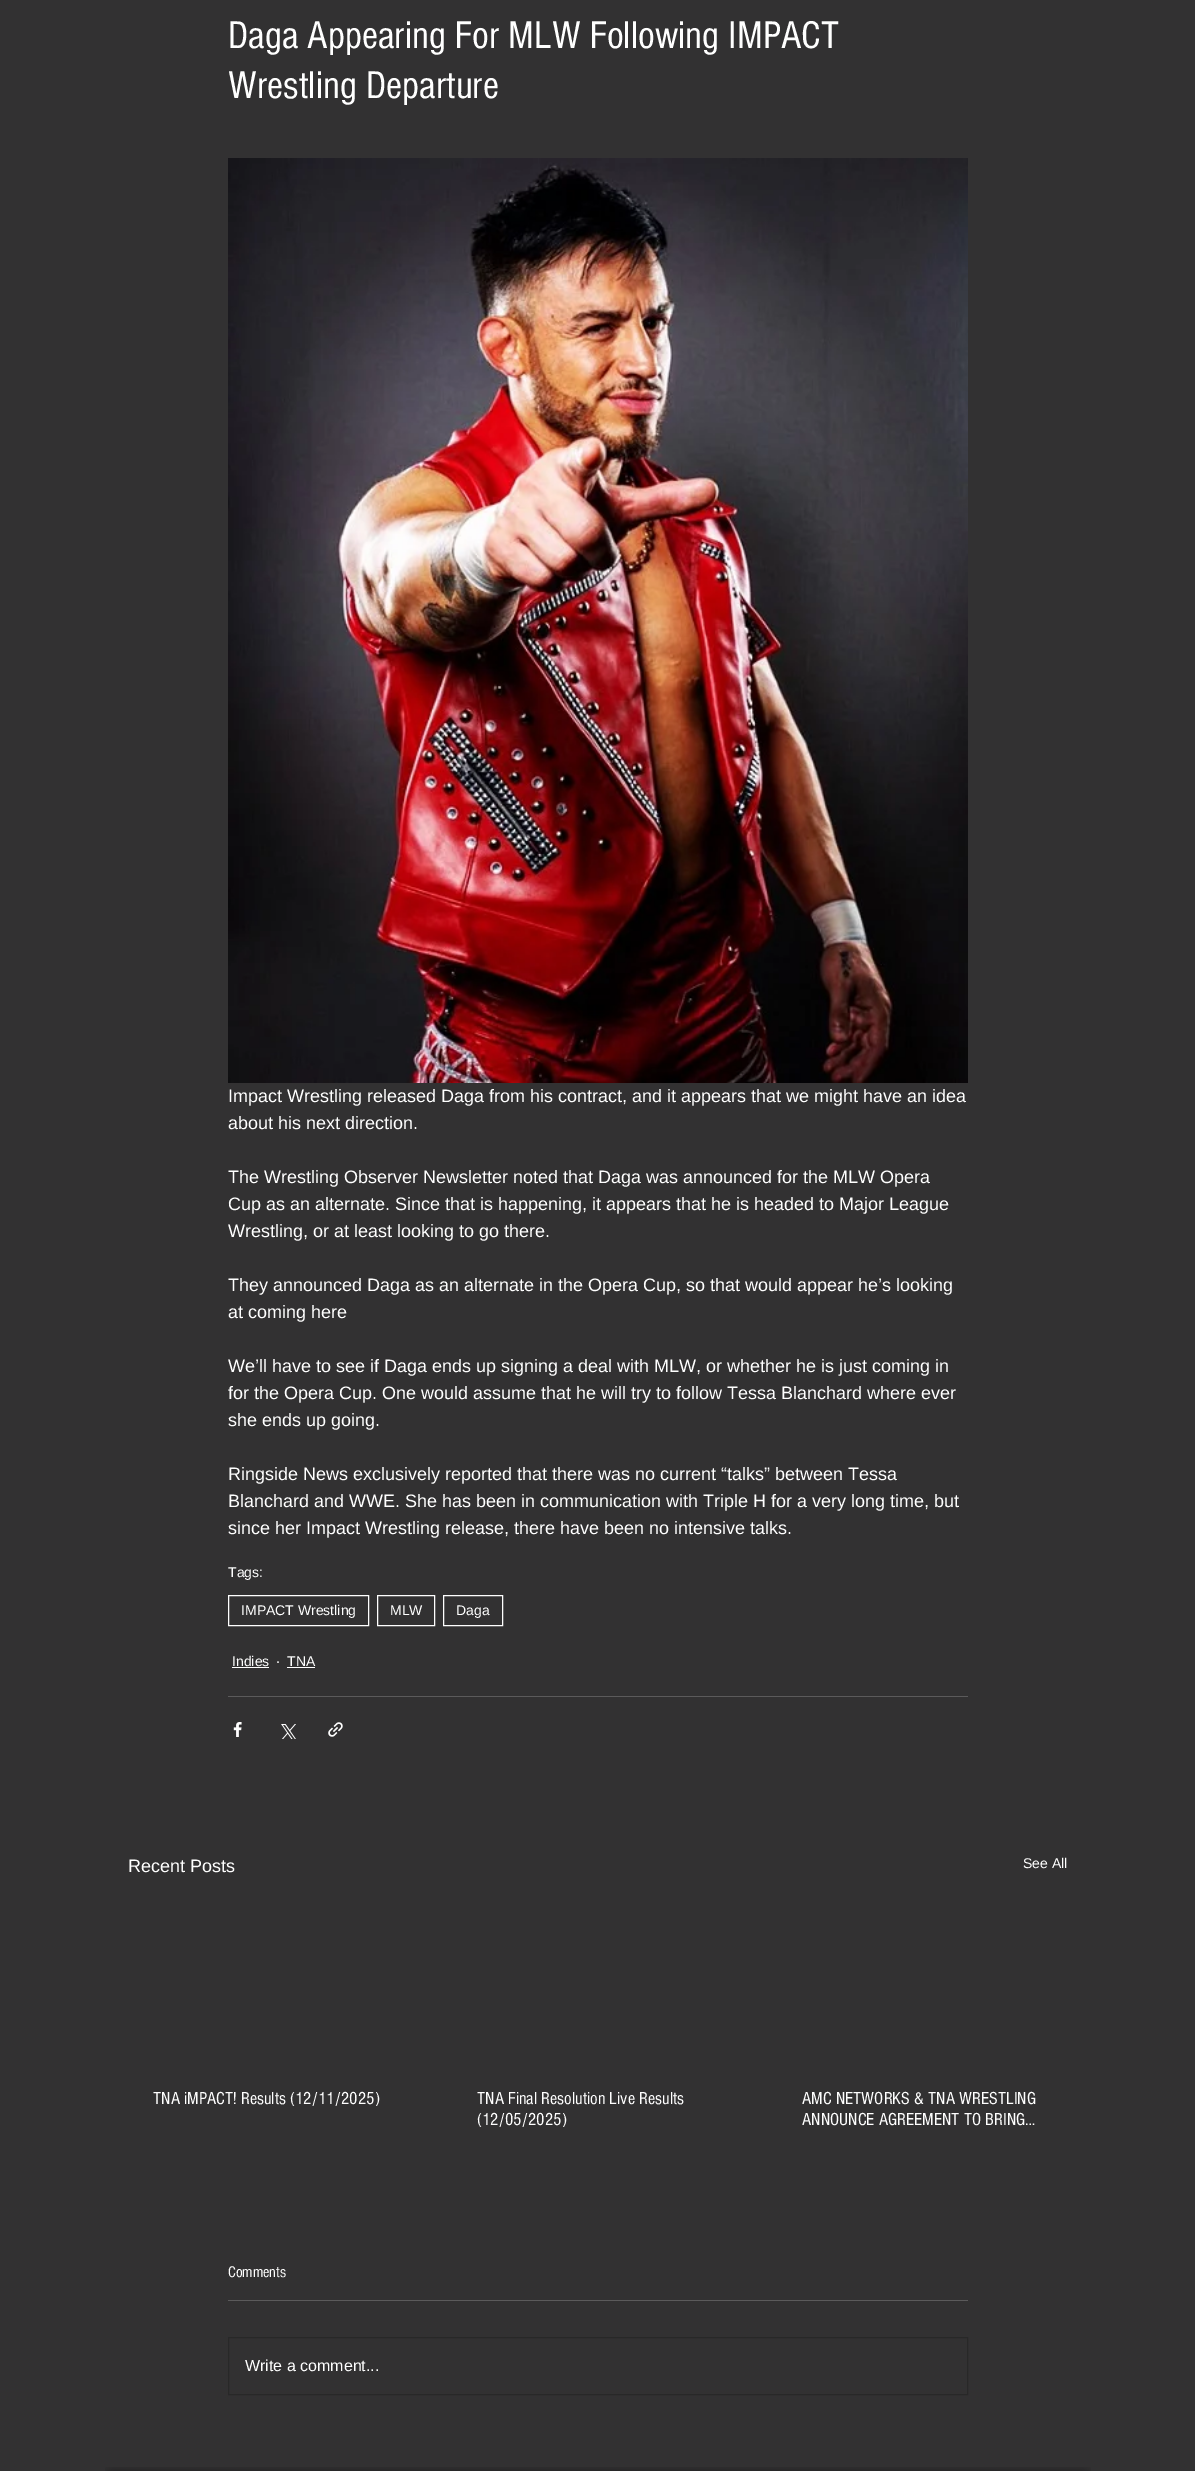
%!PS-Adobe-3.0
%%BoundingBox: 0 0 1195 2471
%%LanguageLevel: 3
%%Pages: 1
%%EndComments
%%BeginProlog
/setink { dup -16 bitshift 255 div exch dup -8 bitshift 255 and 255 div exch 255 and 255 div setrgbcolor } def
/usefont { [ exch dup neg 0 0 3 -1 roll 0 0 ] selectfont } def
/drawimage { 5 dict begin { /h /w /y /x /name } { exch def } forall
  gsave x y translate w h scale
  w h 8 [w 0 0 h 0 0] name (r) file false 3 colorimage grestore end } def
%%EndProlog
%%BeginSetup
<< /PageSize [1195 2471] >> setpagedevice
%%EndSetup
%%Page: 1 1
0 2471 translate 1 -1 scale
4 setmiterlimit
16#323132 setink
0 0 1195 2471 rectfill
/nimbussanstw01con-Regular 40 usefont
16#FFFFFF setink
228 48 moveto (Daga Appearing For MLW Following IMPACT) show
228 98 moveto (Wrestling Departure) show
(img1.raw) 228 158 740 925 drawimage
/LiberationSans-Regular 18 usefont
[
    [(Impact Wrestling released Daga from his contract, and it appears that we might have an idea) 228 1102]
    [(about his next direction.) 228 1129]
    [(The Wrestling Observer Newsletter noted that Daga was announced for the MLW Opera) 228 1183]
    [(Cup as an alternate. Since that is happening, it appears that he is headed to Major League) 228 1210]
    [(Wrestling, or at least looking to go there.) 228 1237]
    [(They announced Daga as an alternate in the Opera Cup, so that would appear he’s looking) 228 1291]
    [(at coming here) 228 1318]
    [(We’ll have to see if Daga ends up signing a deal with MLW, or whether he is just coming in) 228 1372]
    [(for the Opera Cup. One would assume that he will try to follow Tessa Blanchard where ever) 228 1399]
    [(she ends up going.) 228 1426]
    [(Ringside News exclusively reported that there was no current “talks” between Tessa) 228 1480]
    [(Blanchard and WWE. She has been in communication with Triple H for a very long time, but) 228 1507]
    [(since her Impact Wrestling release, there have been no intensive talks.) 228 1534]
] { aload pop moveto show } forall
/LiberationSans-Regular 14 usefont
228 1577 moveto (Tags:) show
228.5 1595.5 140 30 rectstroke
241 1615 moveto (IMPACT Wrestling) show
377.5 1595.5 57 30 rectstroke
390 1615 moveto (MLW) show
443.5 1595.5 59 30 rectstroke
456 1615 moveto (Daga) show
232 1666 moveto (Indies) show
232 1667 37 1 rectfill
/LiberationSans-Regular 18 usefont
275 1667 moveto (·) show
/LiberationSans-Regular 14 usefont
287 1666 moveto (TNA) show
287 1667 28 1 rectfill
16#5B5A5B setink
228 1696 740 1 rectfill
(img2.raw) 233 1722 9 15 drawimage
(img3.raw) 281 1724 15 15 drawimage
(img4.raw) 328 1722 15 15 drawimage
/LiberationSans-Regular 18 usefont
16#FFFFFF setink
128 1872 moveto (Recent Posts) show
/LiberationSans-Regular 14 usefont
1023 1868 moveto (See All) show
/nimbussanstw01con-Regular 18 usefont
[
    [(TNA iMPACT! Results \(12/11/2025\)) 153 2104]
    [(TNA Final Resolution Live Results) 477 2104]
    [(\(12/05/2025\)) 477 2125]
    [(AMC NETWORKS & TNA WRESTLING) 802 2104]
    [(ANNOUNCE AGREEMENT TO BRING…) 802 2125]
] { aload pop moveto show } forall
/nimbussanstw01con-Regular 16 usefont
228 2277 moveto (Comments) show
16#5B5A5B setink
228 2300 740 1 rectfill
16#282828 setink
228.5 2337.5 739 57 rectstroke
/LiberationSans-Regular 16 usefont
16#FFFFFF setink
245 2371 moveto (Write a comment...) show
(img5.raw) 105 2467 38 4 drawimage
(img6.raw) 143 2467 910 4 drawimage
(img7.raw) 1053 2467 38 4 drawimage
showpage
%%EOF
